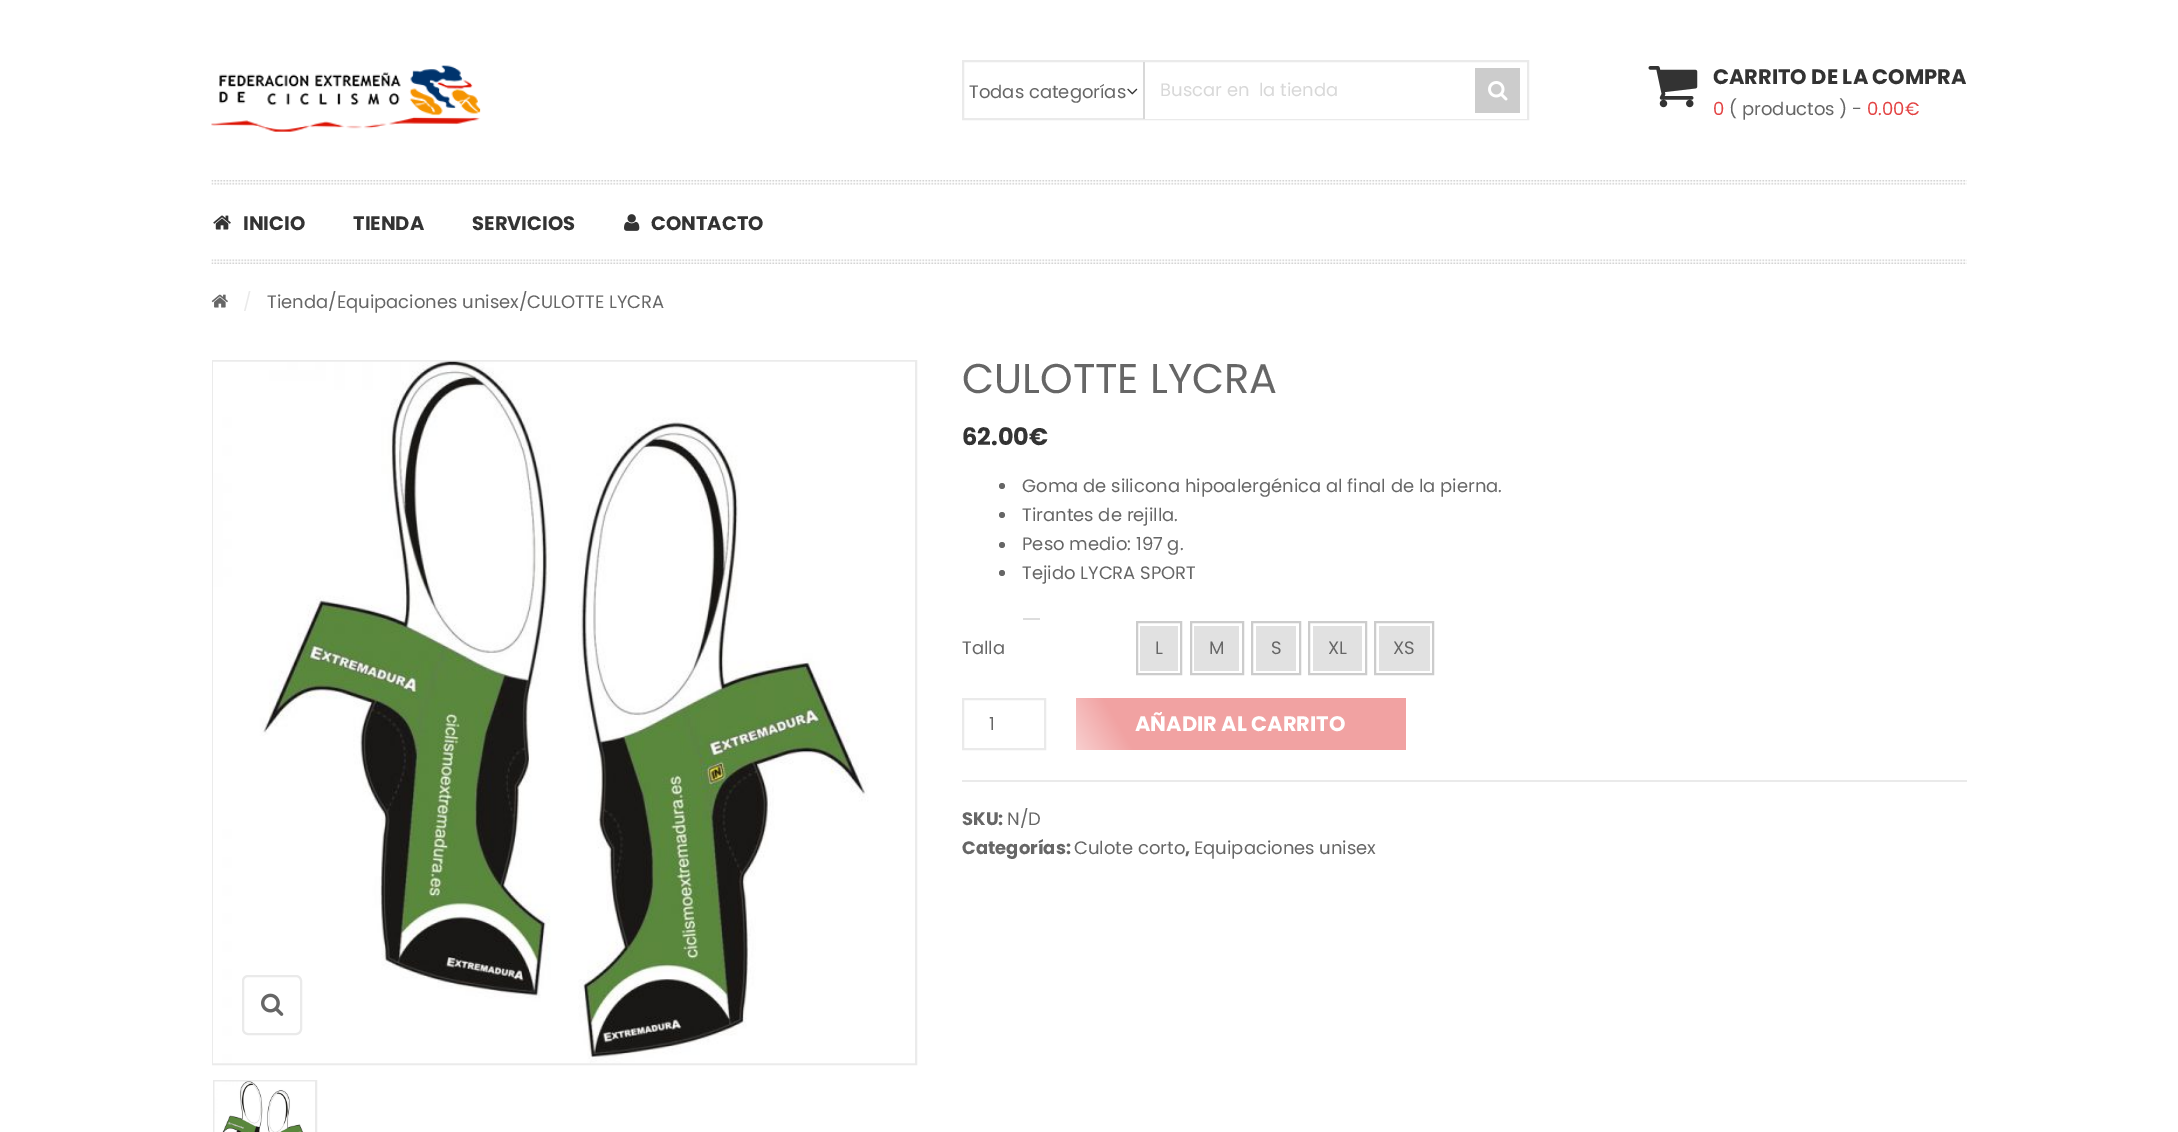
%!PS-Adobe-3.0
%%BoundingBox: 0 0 2178 1132
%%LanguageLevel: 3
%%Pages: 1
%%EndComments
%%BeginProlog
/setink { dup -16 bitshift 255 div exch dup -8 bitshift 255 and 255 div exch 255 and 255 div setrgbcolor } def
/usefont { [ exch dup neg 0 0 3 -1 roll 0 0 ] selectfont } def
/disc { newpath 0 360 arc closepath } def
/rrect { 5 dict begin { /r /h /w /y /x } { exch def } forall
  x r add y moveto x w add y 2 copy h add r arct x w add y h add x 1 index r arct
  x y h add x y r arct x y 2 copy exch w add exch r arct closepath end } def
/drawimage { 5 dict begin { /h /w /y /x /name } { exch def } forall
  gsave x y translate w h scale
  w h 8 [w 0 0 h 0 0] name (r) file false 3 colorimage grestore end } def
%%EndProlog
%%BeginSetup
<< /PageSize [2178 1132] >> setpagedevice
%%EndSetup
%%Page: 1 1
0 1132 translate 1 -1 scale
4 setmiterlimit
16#FFFFFF setink
0 0 2178 1132 rectfill
(img1.raw) 211 65 270 67 drawimage
16#EAEAEA setink
2 setlinewidth
963 61 565 58 rectstroke
/Poppins-Regular 18 usefont
16#666666 setink
969 98 moveto (Todas categorías) show
(img2.raw) 1127 88 11 7 drawimage
16#FFFFFF setink
1145 118 382 1 rectfill
16#D8D8D8 setink
1143 62 2 57 rectfill
1160 96 moveto (Buscar en  la tienda) show
16#CCCCCC setink
1475 68 45 45 rectfill
(img3.raw) 1488 81 20 20 drawimage
(img4.raw) 1648 66 50 42 drawimage
/Poppins-Bold 21 usefont
16#333333 setink
1713 84 moveto (CARRITO DE LA COMPRA) show
/Poppins-Regular 18 usefont
16#E34444 setink
1713 115 moveto (0) show
16#666666 setink
1729 115 moveto (\( productos \) -) show
16#E34444 setink
1867 115 moveto (0.00€) show
(img5.raw) 211 180 1756 5 drawimage
(img6.raw) 213 215 18 15 drawimage
/Poppins-Bold 19.5 usefont
16#333333 setink
[
    [(INICIO) 243 230]
    [(TIENDA) 353 230]
    [(SERVICIOS) 472 230]
] { aload pop moveto show } forall
(img7.raw) 624 214 16 17 drawimage
651 230 moveto (CONTACTO) show
(img8.raw) 211 259 1756 5 drawimage
(img9.raw) 211 294 17 14 drawimage
/Poppins-Regular 18 usefont
16#EAEAEA setink
243 308 moveto (/) show
16#666666 setink
267 308 moveto (Tienda/Equipaciones unisex/CULOTTE LYCRA) show
16#EBEBEB setink
213 361 703 703 rectstroke
(img10.raw) 213 361 702 703 drawimage
16#EAEAEA setink
243 976 58 58 5 rrect stroke
(img11.raw) 261 993 23 23 drawimage
214 1081 102 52 rectstroke
(img12.raw) 214 1081 101 51 drawimage
/Poppins-Regular 41.5 usefont
16#666666 setink
962 393 moveto (CULOTTE LYCRA) show
/Poppins-Bold 24 usefont
16#333333 setink
962 445 moveto (62.00€) show
16#666666 setink
1002 486 3 disc fill
/Poppins-Regular 18 usefont
1022 492 moveto (Goma de silicona hipoalergénica al final de la pierna.) show
1002 515 3 disc fill
1022 521 moveto (Tirantes de rejilla.) show
1002 545 3 disc fill
1022 550 moveto (Peso medio: 197 g.) show
1002 573 3 disc fill
1022 579 moveto (Tejido LYCRA SPORT) show
16#DDDDDD setink
1023 618 17 2 rectfill
16#666666 setink
962 654 moveto (Talla) show
16#CCCCCC setink
1137 622 44 52 rectstroke
16#E1E1E1 setink
1140 626 38 45 rectfill
16#666666 setink
1155 654 moveto (L) show
16#CCCCCC setink
1191 622 52 52 rectstroke
16#E1E1E1 setink
1194 626 45 45 rectfill
16#666666 setink
1209 654 moveto (M) show
16#CCCCCC setink
1252 622 48 52 rectstroke
16#E1E1E1 setink
1256 626 40 45 rectfill
16#666666 setink
1271 654 moveto (S) show
16#CCCCCC setink
1309 622 57 52 rectstroke
16#E1E1E1 setink
1313 626 49 45 rectfill
16#666666 setink
1328 654 moveto (XL) show
16#CCCCCC setink
1375 622 58 52 rectstroke
16#E1E1E1 setink
1379 626 51 45 rectfill
16#666666 setink
1393 654 moveto (XS) show
16#EAEAEA setink
963 699 82 50 rectstroke
16#666666 setink
989 730 moveto (1) show
16#F1A2A2 setink
1104 698 302 52 rectfill
gsave
1076 698 330 52 rectclip
gsave 931 399 moveto 1262 971 lineto 1171 1024 lineto 840 452 lineto closepath clip newpath
<< /ShadingType 2 /ColorSpace /DeviceRGB /Coords [1096 685 1006 738] /Extend [true true] /Function << /FunctionType 3 /Domain [0 1] /Functions [<< /FunctionType 2 /Domain [0 1] /C0 [0.945 0.635 0.635] /C1 [0.973 0.82 0.82] /N 1 >> << /FunctionType 2 /Domain [0 1] /C0 [0.973 0.82 0.82] /C1 [0.945 0.635 0.635] /N 1 >>] /Bounds [0.5] /Encode [0 1 0 1] >> >> shfill grestore
grestore
/Poppins-Bold 21 usefont
16#FFFFFF setink
1135 731 moveto (AÑADIR AL CARRITO) show
16#EAEAEA setink
962 780 1005 2 rectfill
/Poppins-Bold 18 usefont
16#666666 setink
962 825 moveto (SKU:) show
/Poppins-Regular 18 usefont
1007 825 moveto (N/D) show
/Poppins-Bold 18 usefont
962 854 moveto (Categorías:) show
/Poppins-Regular 18 usefont
1074 854 moveto (Culote corto) show
/Poppins-Bold 18 usefont
1185 854 moveto (,) show
/Poppins-Regular 18 usefont
1194 854 moveto (Equipaciones unisex) show
showpage
%%EOF
